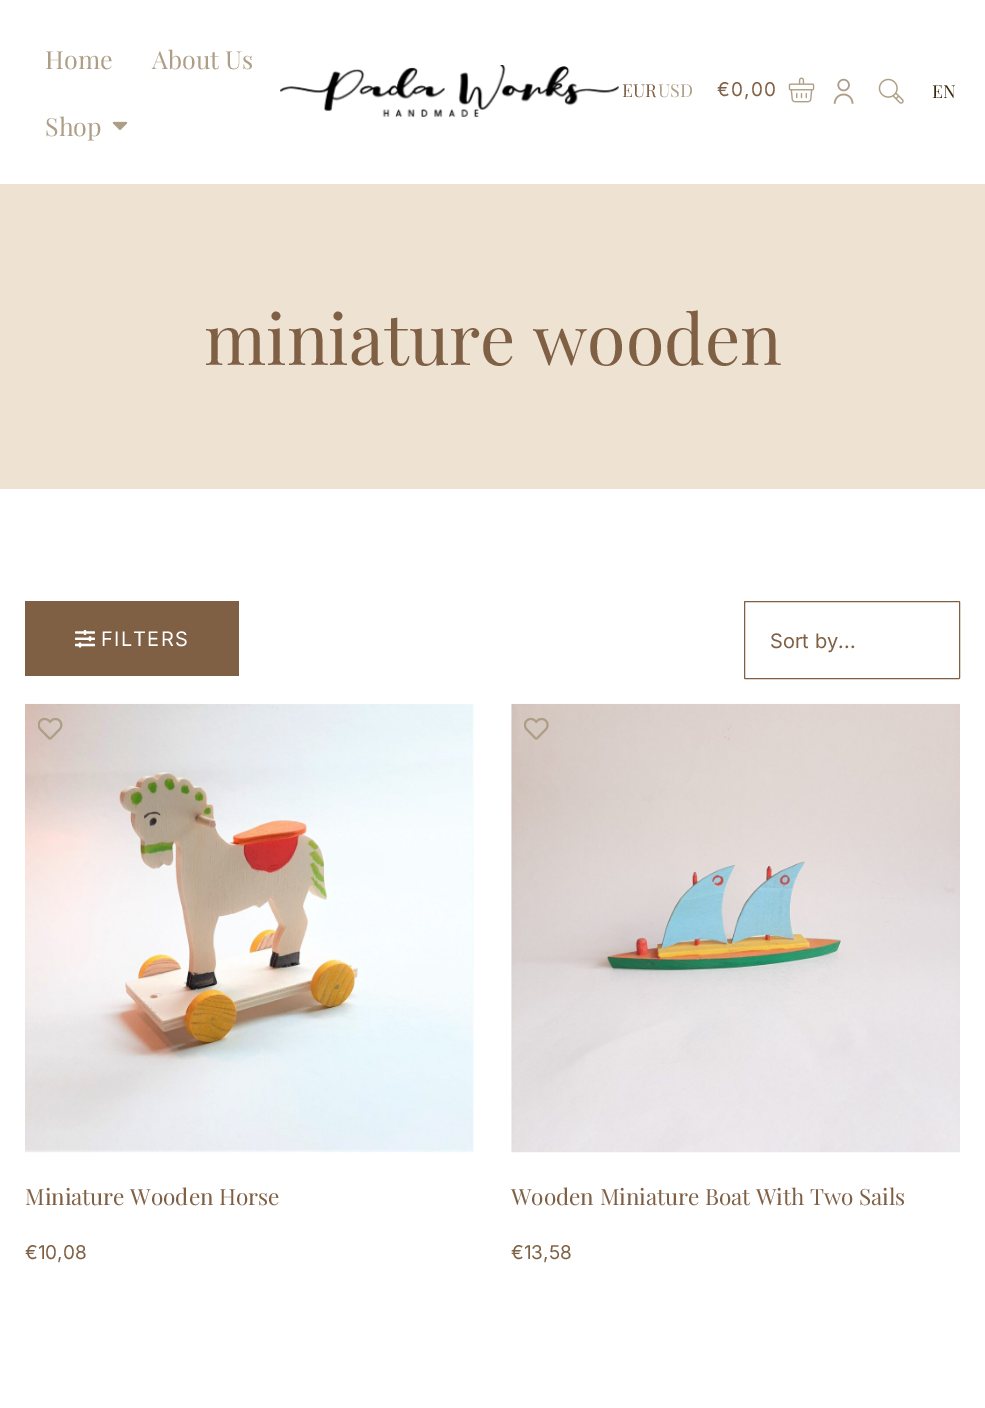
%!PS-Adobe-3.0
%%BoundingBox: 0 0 985 1408
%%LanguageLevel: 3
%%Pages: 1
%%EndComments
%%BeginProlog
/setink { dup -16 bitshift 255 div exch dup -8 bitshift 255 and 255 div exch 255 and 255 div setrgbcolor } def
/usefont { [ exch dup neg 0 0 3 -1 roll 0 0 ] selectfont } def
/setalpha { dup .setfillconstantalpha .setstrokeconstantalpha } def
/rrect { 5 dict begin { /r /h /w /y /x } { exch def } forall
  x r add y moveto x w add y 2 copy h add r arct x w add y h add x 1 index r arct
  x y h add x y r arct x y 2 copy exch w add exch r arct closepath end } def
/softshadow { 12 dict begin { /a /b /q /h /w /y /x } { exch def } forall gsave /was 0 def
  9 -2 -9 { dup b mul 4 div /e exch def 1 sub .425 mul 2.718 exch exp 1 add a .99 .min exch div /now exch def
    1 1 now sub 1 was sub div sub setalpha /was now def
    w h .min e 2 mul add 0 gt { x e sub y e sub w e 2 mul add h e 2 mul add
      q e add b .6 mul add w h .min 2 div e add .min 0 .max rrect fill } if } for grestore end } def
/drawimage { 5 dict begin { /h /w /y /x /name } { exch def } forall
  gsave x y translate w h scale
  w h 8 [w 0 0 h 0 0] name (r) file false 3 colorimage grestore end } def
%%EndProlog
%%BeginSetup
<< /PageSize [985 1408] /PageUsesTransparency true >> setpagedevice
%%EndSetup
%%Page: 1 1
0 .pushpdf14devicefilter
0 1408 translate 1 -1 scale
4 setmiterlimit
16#FFFFFF setink
0 0 985 1408 rectfill
gsave
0 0 moveto 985 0 lineto 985 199 lineto 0 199 lineto closepath 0 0 moveto 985 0 lineto 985 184 lineto 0 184 lineto closepath eoclip newpath
16#000000 setink
0 0 985 184 0 4.5 0.2 softshadow
grestore
/PlayfairDisplay-Regular 25 usefont
16#AE9E87 setink
[
    [(Home) 45 69]
    [(About Us) 152 69]
    [(Shop) 45 136]
] { aload pop moveto show } forall
(img1.raw) 112 121 16 9 drawimage
(img2.raw) 280 65 339 53 drawimage
/PlayfairDisplay-Regular 18 usefont
16#7F6045 setink
622 97 moveto (EUR) show
16#FFFFFF setink
656 96 1 1 rectfill
16#AE9E87 setink
658 97 moveto (USD) show
/Inter-Regular 19 usefont
16#7F6045 setink
717 96 moveto 1.25 0 (€0,00) ashow
(img3.raw) 788 77 27 26 drawimage
(img4.raw) 833 78 21 26 drawimage
(img5.raw) 878 78 26 26 drawimage
/PlayfairDisplay-Regular 18 usefont
16#39250B setink
932 98 moveto (EN) show
16#EEE2D2 setink
0 184 985 305 rectfill
/PlayfairDisplay-Regular 70 usefont
16#7F6045 setink
204 365 moveto (miniature wooden) show
25 601 214 75 rectfill
(img6.raw) 75 630 20 18 drawimage
/Inter-Regular 20 usefont
16#FFFFFF setink
101 646 moveto 1.25 0 (FILTERS) ashow
16#7F6045 setink
744.5 601.5 215 77 0.5 rrect stroke
770 648 moveto (Sort by...) show
(img7.raw) 25 703 449 450 drawimage
(img8.raw) 38 717 25 23 drawimage
/PlayfairDisplay-Regular 22.5 usefont
25 1205 moveto (Miniature Wooden Horse) show
/Inter-Regular 19 usefont
25 1259 moveto (€10,08) show
(img9.raw) 511 703 449 450 drawimage
(img10.raw) 524 717 25 23 drawimage
/PlayfairDisplay-Regular 22.5 usefont
511 1205 moveto (Wooden Miniature Boat With Two Sails) show
/Inter-Regular 19 usefont
511 1259 moveto (€13,58) show
.poppdf14devicefilter showpage
%%EOF
